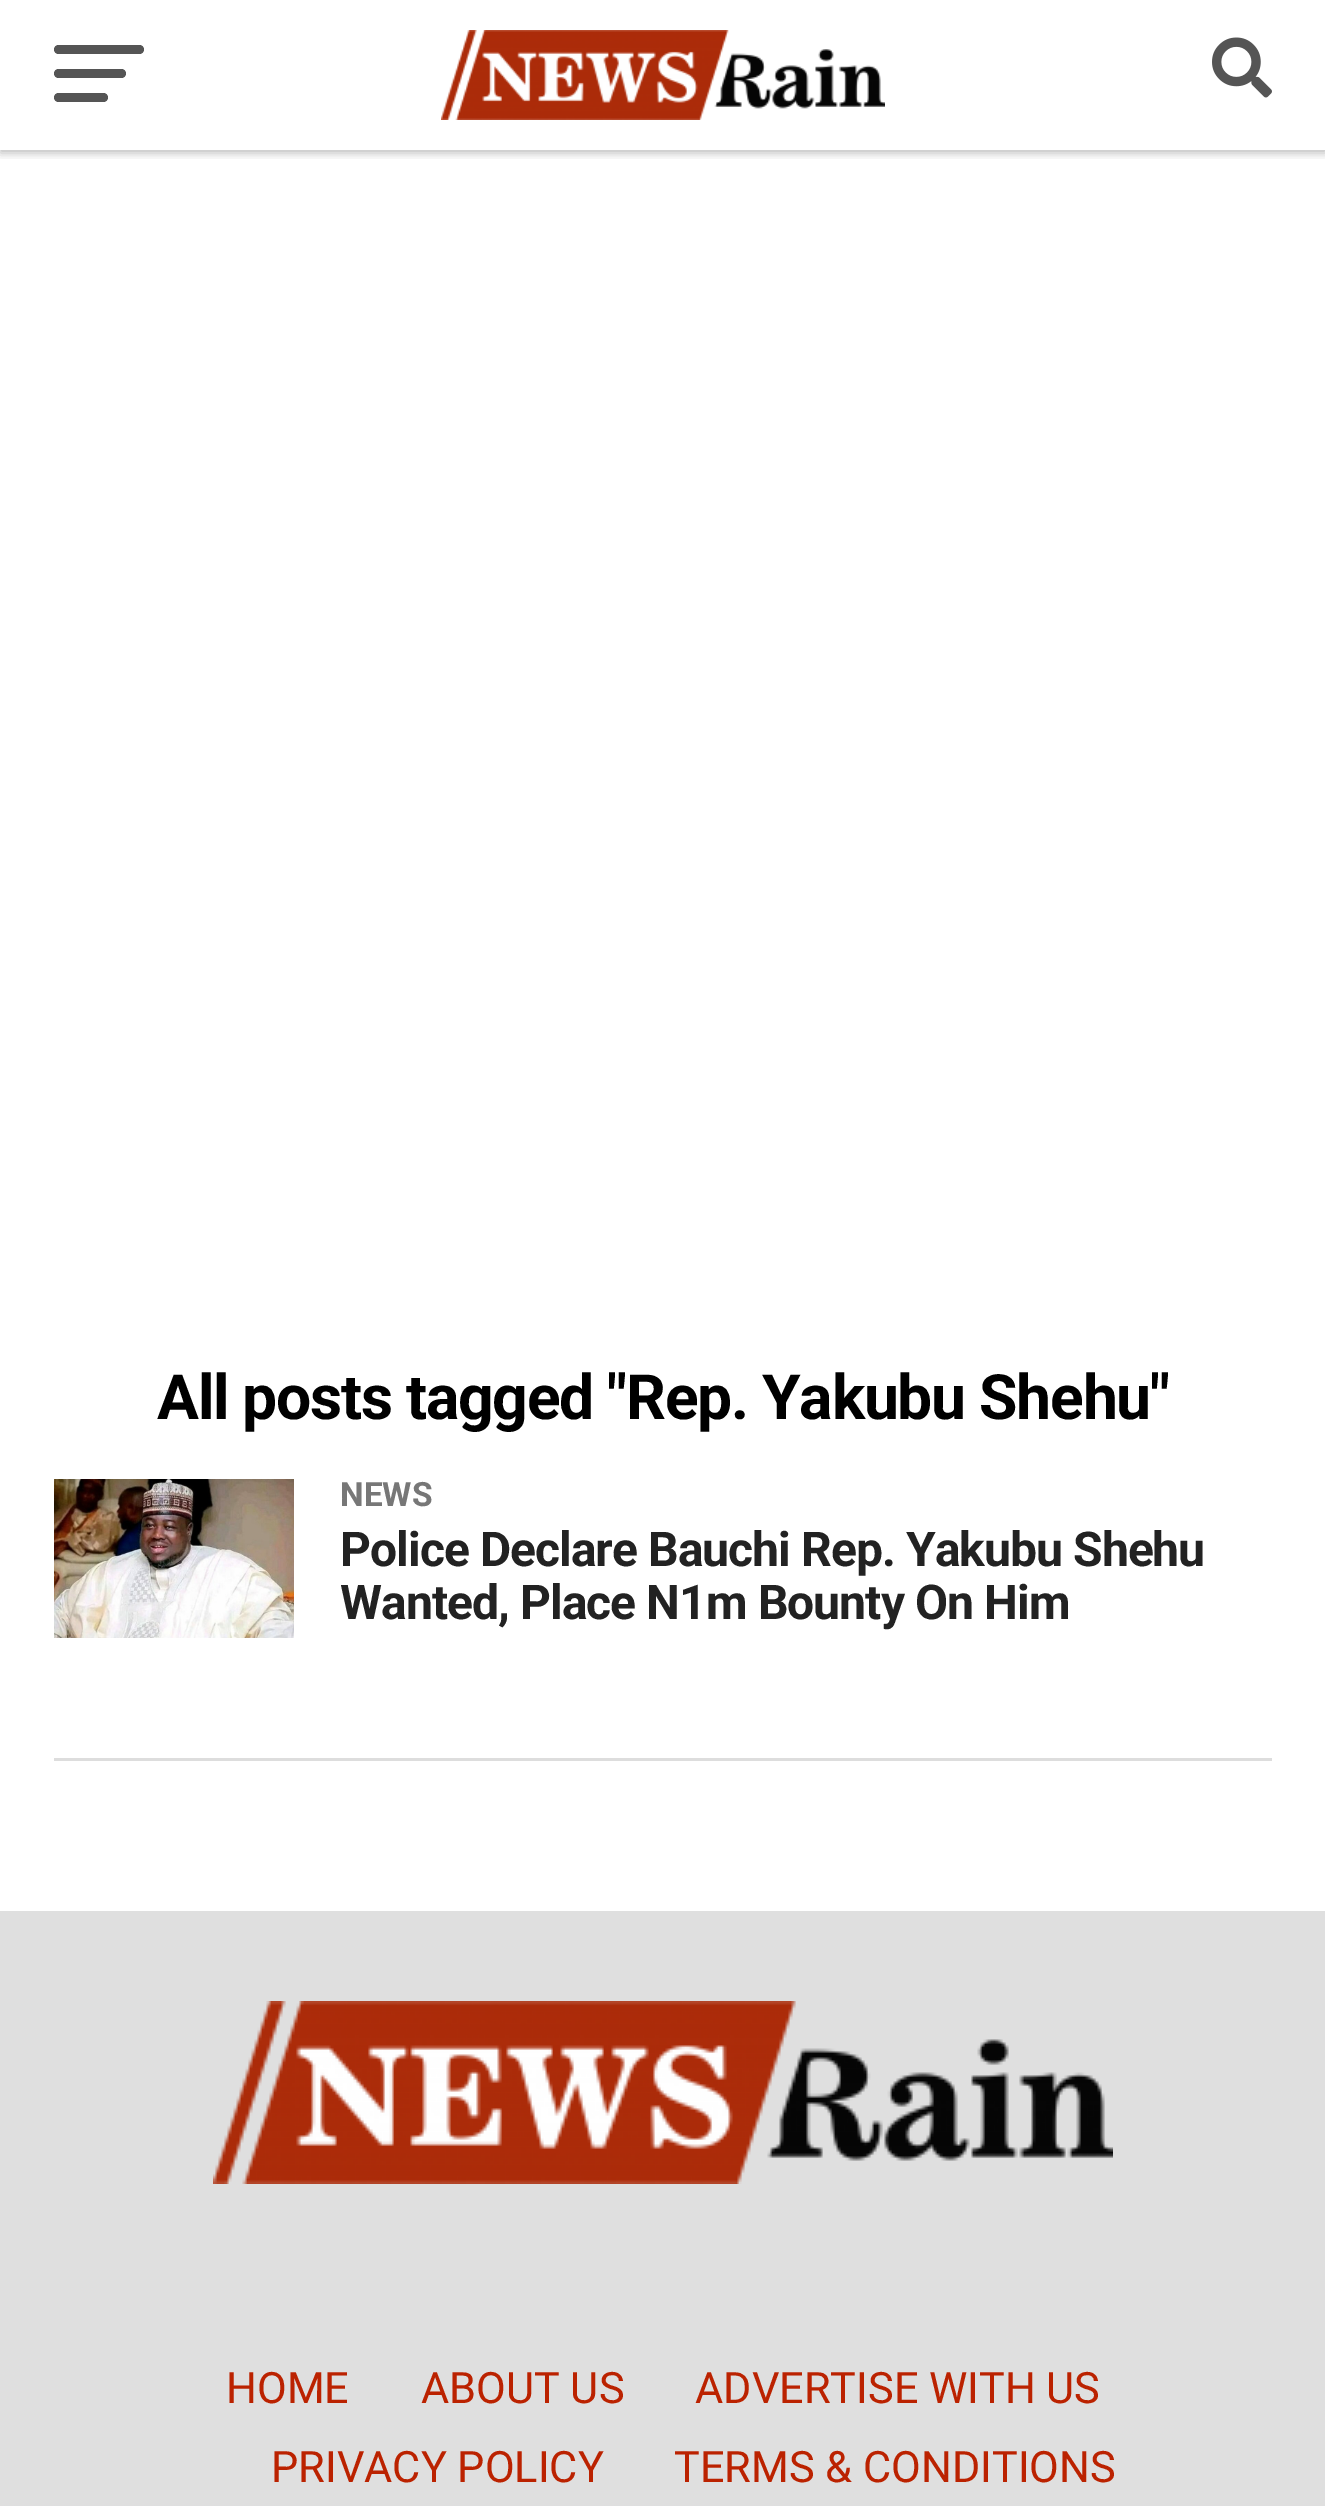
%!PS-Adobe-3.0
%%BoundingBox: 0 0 1325 2506
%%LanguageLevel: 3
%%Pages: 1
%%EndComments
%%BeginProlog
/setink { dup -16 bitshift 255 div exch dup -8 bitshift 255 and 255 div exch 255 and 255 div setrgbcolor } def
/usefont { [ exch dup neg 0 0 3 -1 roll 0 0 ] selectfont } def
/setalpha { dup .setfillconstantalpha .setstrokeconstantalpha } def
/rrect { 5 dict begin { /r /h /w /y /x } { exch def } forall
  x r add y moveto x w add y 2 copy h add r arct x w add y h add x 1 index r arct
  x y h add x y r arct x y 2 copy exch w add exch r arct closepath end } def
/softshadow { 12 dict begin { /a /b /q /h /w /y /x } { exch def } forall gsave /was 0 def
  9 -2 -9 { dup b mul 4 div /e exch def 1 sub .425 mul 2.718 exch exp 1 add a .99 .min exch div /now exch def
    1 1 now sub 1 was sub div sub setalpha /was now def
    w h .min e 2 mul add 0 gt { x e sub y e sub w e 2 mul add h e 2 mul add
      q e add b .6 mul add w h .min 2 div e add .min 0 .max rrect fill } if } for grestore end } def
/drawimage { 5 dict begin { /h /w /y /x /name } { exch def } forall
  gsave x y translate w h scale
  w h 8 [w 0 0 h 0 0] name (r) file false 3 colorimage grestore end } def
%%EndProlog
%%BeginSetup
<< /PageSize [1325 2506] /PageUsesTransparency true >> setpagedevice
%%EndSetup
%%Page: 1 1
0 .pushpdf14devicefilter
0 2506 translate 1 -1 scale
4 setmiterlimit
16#FFFFFF setink
0 0 1325 2506 rectfill
gsave
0 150 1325 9 rectclip
16#000000 setink
0 3 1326 150 0 4.5 0.25 softshadow
grestore
16#555555 setink
54 45 90 9 4.5 rrect fill
54 69 72 9 4.5 rrect fill
54 93 54 9 4.5 rrect fill
(img1.raw) 441 30 444 90 drawimage
(img2.raw) 1212 37 60 61 drawimage
/Roboto-Bold 62.4 usefont
16#000000 setink
157 1419 moveto -1.25 0 (All posts tagged "Rep. Yakubu Shehu") ashow
(img3.raw) 54 1479 240 159 drawimage
/Roboto-Bold 33.5 usefont
16#777777 setink
340 1506 moveto (NEWS) show
/Roboto-Bold 48 usefont
16#222222 setink
340 1566 moveto -0.95 0 (Police Declare Bauchi Rep. Yakubu Shehu) ashow
340 1619 moveto -0.95 0 (Wanted, Place N1m Bounty On Him) ashow
16#DDDDDD setink
54 1758 1218 3 rectfill
16#DFDFDF setink
0 1911 1325 595 rectfill
(img4.raw) 213 2001 900 183 drawimage
/Roboto-Regular 43.25 usefont
16#BB2200 setink
[
    [(HOME) 226 2403]
    [(ABOUT US) 421 2403]
    [(ADVERTISE WITH US) 695 2403]
    [(PRIVACY POLICY) 271 2482]
    [(TERMS & CONDITIONS) 674 2482]
] { aload pop moveto show } forall
.poppdf14devicefilter showpage
%%EOF
